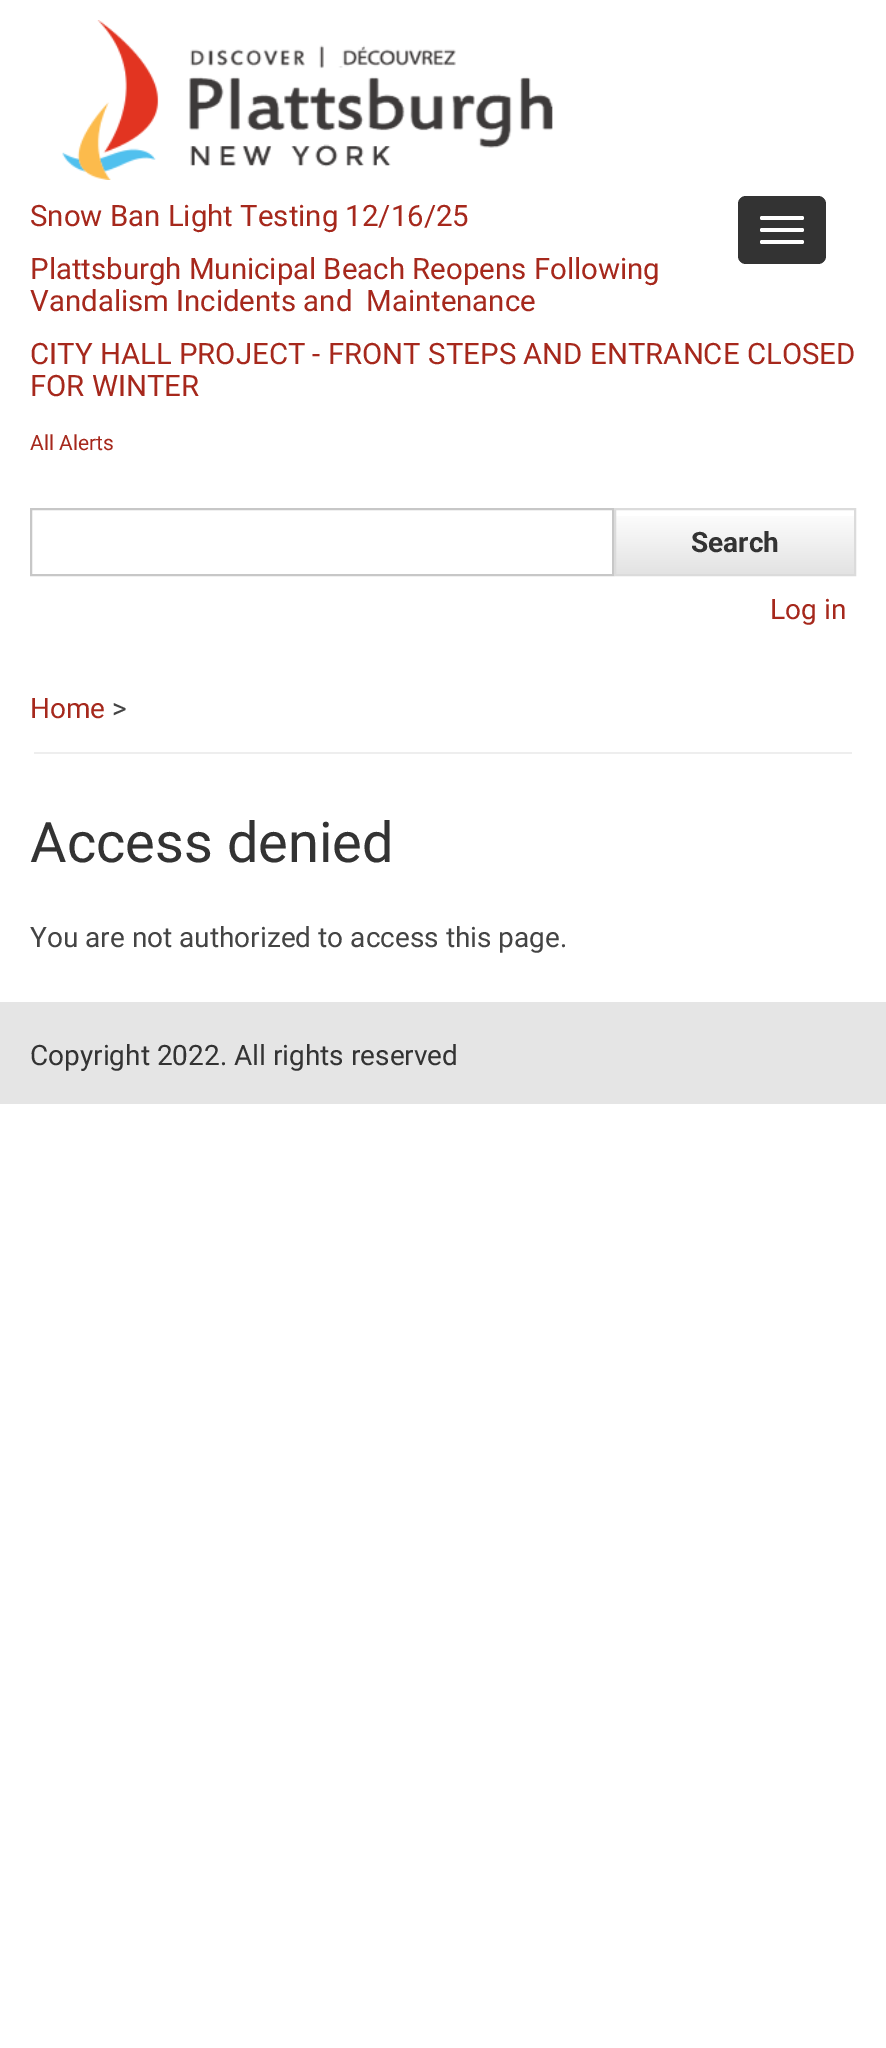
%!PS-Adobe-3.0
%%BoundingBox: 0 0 886 2048
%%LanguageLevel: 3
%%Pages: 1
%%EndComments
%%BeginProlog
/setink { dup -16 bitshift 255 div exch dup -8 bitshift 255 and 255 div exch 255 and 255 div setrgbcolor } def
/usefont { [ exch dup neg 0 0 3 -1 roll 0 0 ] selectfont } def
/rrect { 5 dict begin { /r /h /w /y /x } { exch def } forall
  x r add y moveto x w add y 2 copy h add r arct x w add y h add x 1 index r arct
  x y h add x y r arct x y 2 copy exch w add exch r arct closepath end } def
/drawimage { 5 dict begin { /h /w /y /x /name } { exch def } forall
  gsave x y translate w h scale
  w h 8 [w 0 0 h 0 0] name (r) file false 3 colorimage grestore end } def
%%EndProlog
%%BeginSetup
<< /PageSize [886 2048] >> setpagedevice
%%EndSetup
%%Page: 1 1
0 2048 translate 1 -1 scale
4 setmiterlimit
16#FFFFFF setink
0 0 886 2048 rectfill
(img1.raw) 62 20 491 160 drawimage
16#333333 setink
738 196 88 68 8 rrect fill
16#FFFFFF setink
760 216 44 4 2 rrect fill
760 228 44 4 2 rrect fill
760 240 44 4 2 rrect fill
/Roboto-Regular 29.4 usefont
16#A6281C setink
[
    [(Snow Ban Light Testing 12/16/25) 30 226]
    [(Plattsburgh Municipal Beach Reopens Following) 30 279]
    [(Vandalism Incidents and) 30 311]
    [(Maintenance) 366 311]
    [(CITY HALL PROJECT - FRONT STEPS AND ENTRANCE CLOSED) 30 364]
    [(FOR WINTER) 30 396]
] { aload pop moveto show } forall
/Roboto-Regular 21 usefont
30 450 moveto (All Alerts) show
16#C7C7C7 setink
2 setlinewidth
31 509 582 66 rectstroke
gsave 616 516 moveto 854 516 lineto 854 574 lineto 616 574 lineto closepath clip newpath
<< /ShadingType 2 /ColorSpace /DeviceRGB /Coords [735 510 735 574] /Extend [true true] /Function << /FunctionType 2 /Domain [0 1] /C0 [1 1 1] /C1 [0.89 0.89 0.89] /N 1 >> >> shfill grestore
16#DBDBDB setink
615 509 240 66 rectstroke
/Roboto-Bold 28 usefont
16#333333 setink
691 552 moveto (Search) show
/Roboto-Regular 28 usefont
16#A6281C setink
770 619 moveto (Log in) show
16#EEEEEE setink
34 752 818 2 rectfill
16#A6281C setink
30 718 moveto (Home) show
16#444444 setink
112 718 moveto (>) show
/Roboto-Regular 56 usefont
16#333333 setink
30 862 moveto (Access denied) show
/Roboto-Regular 28 usefont
16#444444 setink
30 947 moveto (You are not authorized to access this page.) show
16#E5E5E5 setink
0 1002 886 102 rectfill
16#333333 setink
30 1065 moveto (Copyright 2022. All rights reserved) show
showpage
%%EOF
